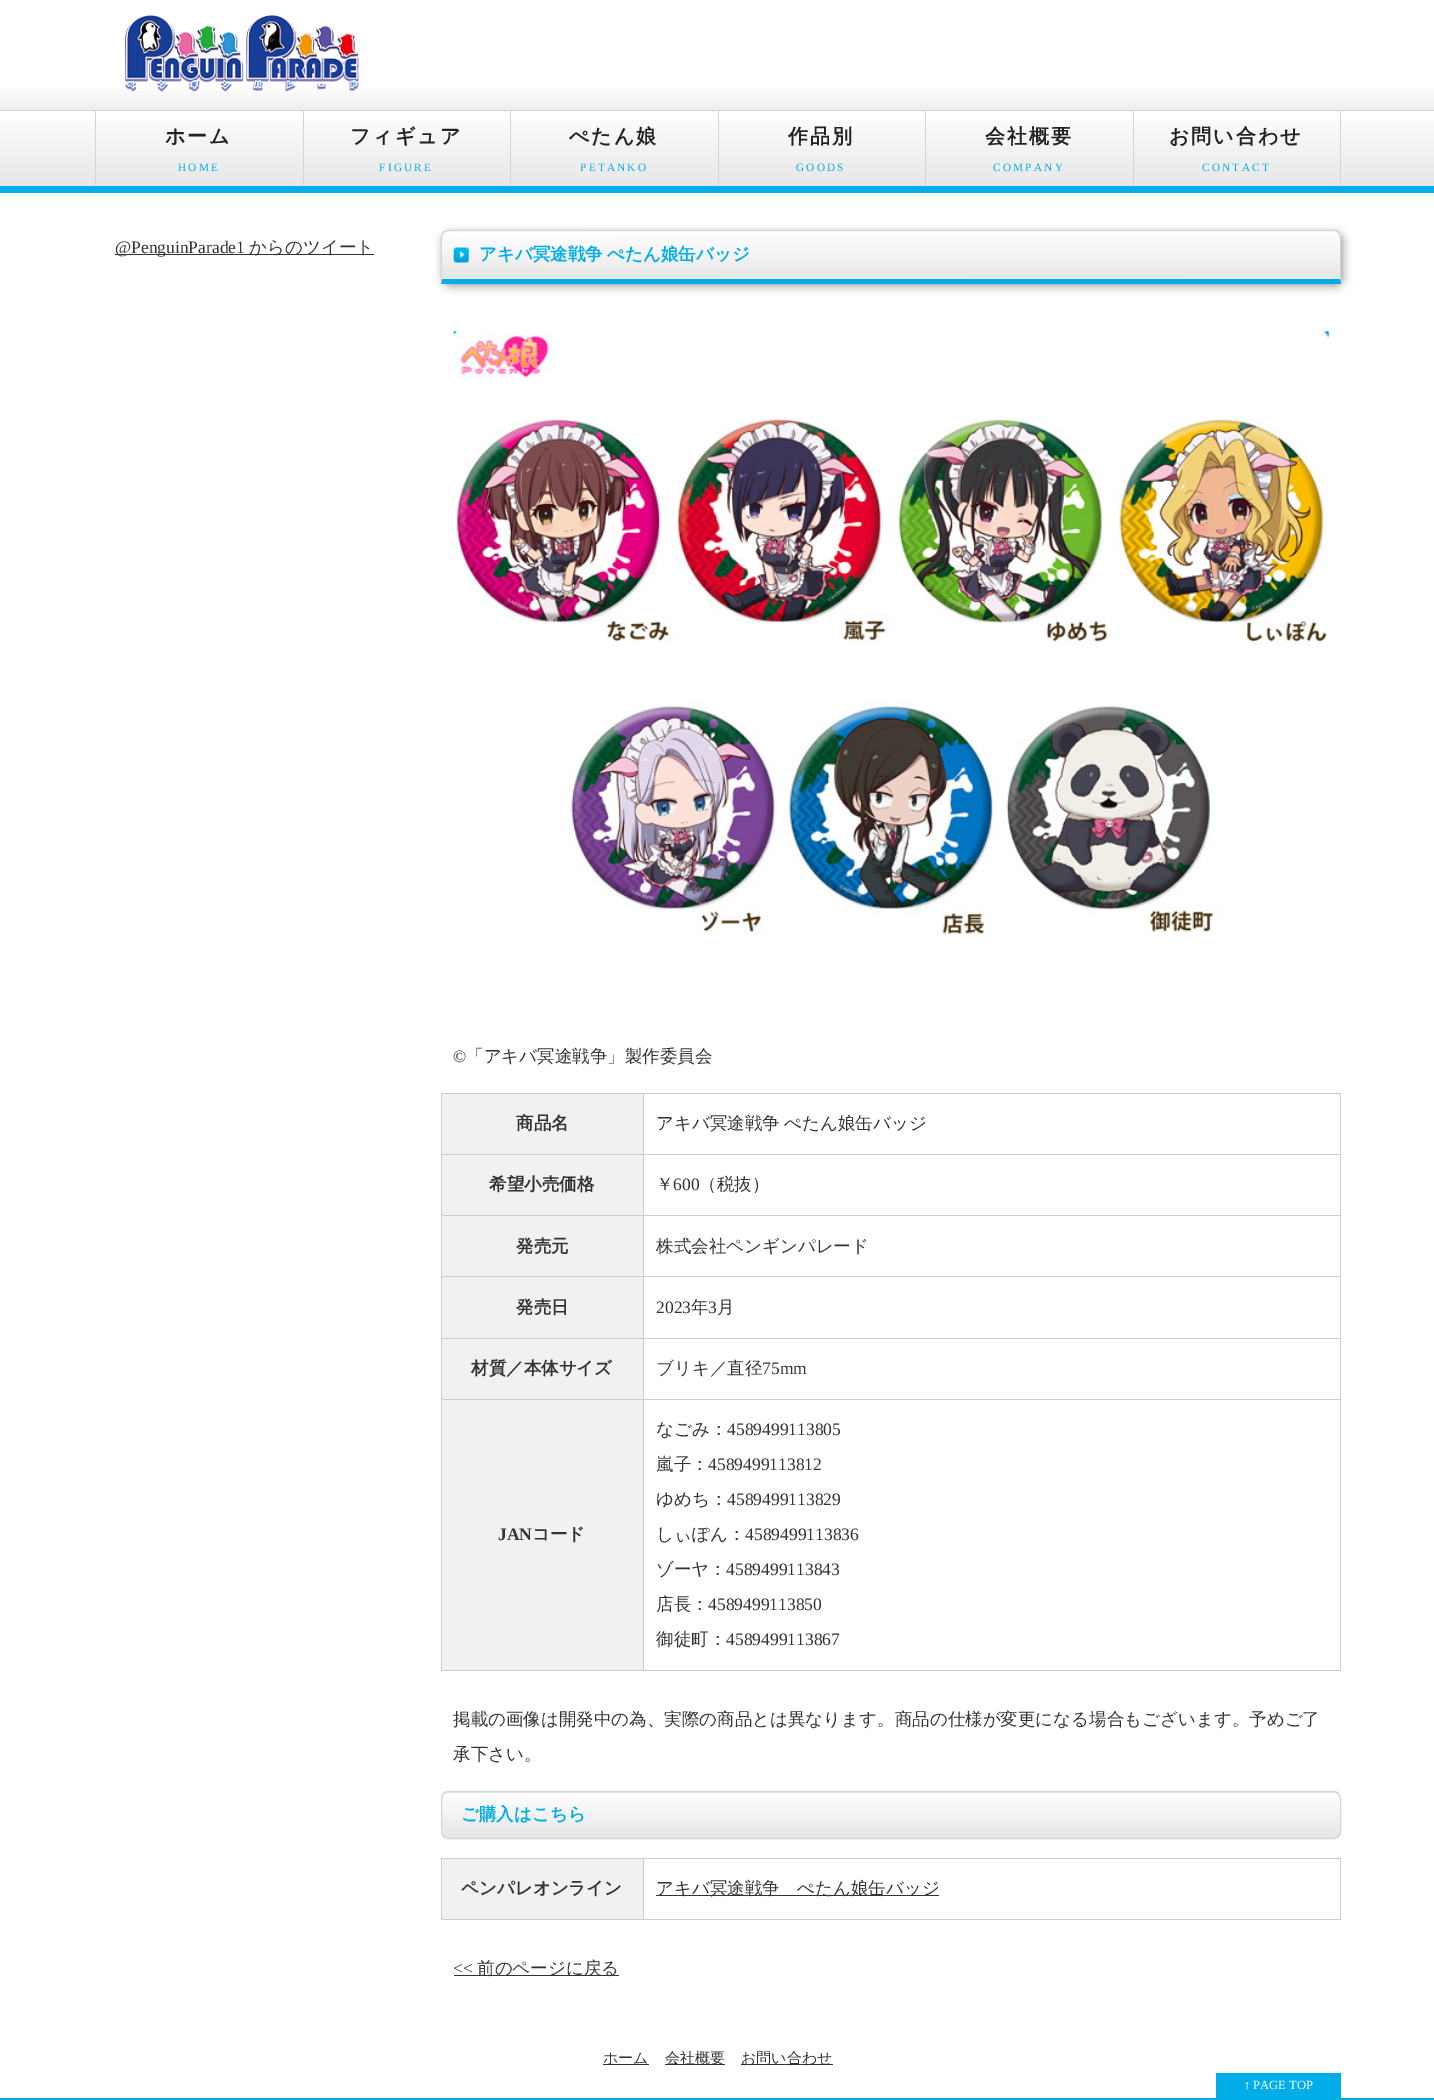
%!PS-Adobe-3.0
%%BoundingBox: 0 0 1434 2100
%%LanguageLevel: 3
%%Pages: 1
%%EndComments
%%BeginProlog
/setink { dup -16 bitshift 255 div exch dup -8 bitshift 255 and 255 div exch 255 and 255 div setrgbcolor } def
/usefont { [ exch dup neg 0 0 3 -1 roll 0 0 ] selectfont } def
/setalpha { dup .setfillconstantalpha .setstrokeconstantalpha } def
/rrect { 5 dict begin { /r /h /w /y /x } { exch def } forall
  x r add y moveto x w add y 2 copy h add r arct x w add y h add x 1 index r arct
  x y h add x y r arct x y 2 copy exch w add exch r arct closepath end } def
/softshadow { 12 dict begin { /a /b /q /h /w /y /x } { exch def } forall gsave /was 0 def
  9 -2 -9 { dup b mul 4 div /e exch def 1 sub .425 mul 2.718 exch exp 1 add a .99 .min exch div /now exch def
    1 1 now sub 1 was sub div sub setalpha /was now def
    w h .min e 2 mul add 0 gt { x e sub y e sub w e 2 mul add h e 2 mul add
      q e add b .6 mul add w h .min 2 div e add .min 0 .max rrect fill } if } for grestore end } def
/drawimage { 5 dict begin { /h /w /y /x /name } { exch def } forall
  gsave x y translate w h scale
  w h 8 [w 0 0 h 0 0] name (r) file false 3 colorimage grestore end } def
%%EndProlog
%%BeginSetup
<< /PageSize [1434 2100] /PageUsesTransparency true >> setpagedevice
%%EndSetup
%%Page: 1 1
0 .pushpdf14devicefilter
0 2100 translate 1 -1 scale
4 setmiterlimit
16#FFFFFF setink
0 0 1434 2100 rectfill
gsave 0 88 moveto 1434 88 lineto 1434 110 lineto 0 110 lineto closepath clip newpath
<< /ShadingType 2 /ColorSpace /DeviceRGB /Coords [718 -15 718 110] /Extend [true true] /Function << /FunctionType 3 /Domain [0 1] /Functions [<< /FunctionType 2 /Domain [0 1] /C0 [1 1 1] /C1 [1 1 1] /N 1 >> << /FunctionType 2 /Domain [0 1] /C0 [1 1 1] /C1 [0.929 0.929 0.929] /N 1 >>] /Bounds [0.8] /Encode [0 1 0 1] >> >> shfill grestore
(img1.raw) 125 15 234 77 drawimage
gsave 0 119 moveto 1434 119 lineto 1434 186 lineto 0 186 lineto closepath clip newpath
<< /ShadingType 2 /ColorSpace /DeviceRGB /Coords [718 111 718 186] /Extend [true true] /Function << /FunctionType 2 /Domain [0 1] /C0 [1 1 1] /C1 [0.906 0.906 0.906] /N 1 >> >> shfill grestore
[
    [0 110 1434 1 16#D4D4D4]
    [0 186 1434 7 16#00ADE6]
    [303 111 1 75 16#D4D4D4]
    [95 111 1 75 16#D4D4D4]
] { aload pop setink rectfill } forall
/WenQuanYiZenHei-Bold 20 usefont
16#222222 setink
165 143 moveto 2 0 (ホーム) ashow
/LiberationSerif-Regular 11.25 usefont
16#00ADE6 setink
178 171 moveto 2.25 0 (HOME) ashow
16#D4D4D4 setink
510 111 1 75 rectfill
/WenQuanYiZenHei-Bold 20 usefont
16#222222 setink
350 143 moveto 2 0 (フィギュア) ashow
/LiberationSerif-Regular 11.25 usefont
16#00ADE6 setink
379 171 moveto 2.25 0 (FIGURE) ashow
16#D4D4D4 setink
718 111 1 75 rectfill
/WenQuanYiZenHei-Bold 20 usefont
16#222222 setink
569 143 moveto 2 0 (ぺたん娘) ashow
/LiberationSerif-Regular 11.25 usefont
16#00ADE6 setink
580 171 moveto 2.25 0 (PETANKO) ashow
16#D4D4D4 setink
925 111 1 75 rectfill
/WenQuanYiZenHei-Bold 20 usefont
16#222222 setink
788 143 moveto 2 0 (作品別) ashow
/LiberationSerif-Regular 11.25 usefont
16#00ADE6 setink
796 171 moveto 2.25 0 (GOODS) ashow
16#D4D4D4 setink
1133 111 1 75 rectfill
/WenQuanYiZenHei-Bold 20 usefont
16#222222 setink
985 143 moveto 2 0 (会社概要) ashow
/LiberationSerif-Regular 11.25 usefont
16#00ADE6 setink
993 171 moveto 2.25 0 (COMPANY) ashow
16#D4D4D4 setink
1340 111 1 75 rectfill
/WenQuanYiZenHei-Bold 20 usefont
16#222222 setink
1169 143 moveto 2 0 (お問い合わせ) ashow
/LiberationSerif-Regular 11.25 usefont
16#00ADE6 setink
1202 171 moveto 2.25 0 (CONTACT) ashow
16#333333 setink
115 254 259 1 rectfill
/LiberationSerif-Regular 17.5 usefont
115 253 moveto (@PenguinParade1) show
/WenQuanYiZenHei-Medium 17.5 usefont
249 253 moveto (からのツイート) show
16#999999 setink
443 233 900 53 8 4.5 1 softshadow
(img2.raw) 441 230 900 54 drawimage
16#D4D4D4 setink
449 230 moveto 447 230 445 231 443 232 curveto 444 233 lineto 445 232 447 231 449 231 curveto 1334 231 lineto 1336 231 1337 232 1338 233 curveto 1339 232 lineto 1338 231 1336 230 1334 230 curveto closepath fill
1339 232 moveto 1340 234 1341 236 1341 238 curveto 1341 283 lineto 1340 279 lineto 1340 238 lineto 1340 236 1339 234 1338 233 curveto closepath fill
16#00ADE6 setink
1341 283 moveto 1341 284 lineto 441 284 lineto 442 279 lineto 1340 279 lineto closepath fill
16#D4D4D4 setink
441 284 moveto 441 236 lineto 443 232 lineto 444 233 lineto 443 234 442 236 442 238 curveto 442 279 lineto closepath fill
/WenQuanYiZenHei-Bold 17.5 usefont
16#00ADE6 setink
479 260 moveto -1 0 32 (アキバ冥途戦争 ぺたん娘缶バッジ) widthshow
(img3.raw) 453 331 876 603 drawimage
/LiberationSerif-Regular 17.5 usefont
16#333333 setink
453 1062 moveto (©) show
/WenQuanYiZenHei-Medium 17.5 usefont
466 1062 moveto (「アキバ冥途戦争」製作委員会) show
[
    [441 1093 900 1 16#CCCCCC]
    [1340 1093 1 578 16#CCCCCC]
    [441 1670 900 1 16#CCCCCC]
    [441 1093 1 578 16#CCCCCC]
    [442 1094 201 60 16#F1F1F1]
] { aload pop setink rectfill } forall
/WenQuanYiZenHei-Bold 17.5 usefont
16#333333 setink
516 1129 moveto (商品名) show
[
    [643 1154 698 1 16#CCCCCC]
    [643 1215 698 1 16#CCCCCC]
    [442 1216 201 122 16#F1F1F1]
    [643 1276 698 1 16#CCCCCC]
    [643 1338 698 1 16#CCCCCC]
    [643 1399 698 1 16#CCCCCC]
    [643 1399 1 272 16#CCCCCC]
    [441 1399 203 1 16#CCCCCC]
    [643 1338 1 62 16#CCCCCC]
    [441 1338 203 1 16#CCCCCC]
    [643 1276 1 63 16#CCCCCC]
    [441 1276 203 1 16#CCCCCC]
    [643 1215 1 63 16#CCCCCC]
    [441 1215 203 1 16#CCCCCC]
    [643 1154 1 62 16#CCCCCC]
    [441 1154 203 1 16#CCCCCC]
    [643 1093 1 62 16#CCCCCC]
] { aload pop setink rectfill } forall
/WenQuanYiZenHei-Medium 17.5 usefont
16#333333 setink
656 1129 moveto -1 0 32 (アキバ冥途戦争 ぺたん娘缶バッジ) widthshow
16#F1F1F1 setink
442 1155 201 60 rectfill
/WenQuanYiZenHei-Bold 17.5 usefont
16#333333 setink
489 1190 moveto (希望小売価格) show
/WenQuanYiZenHei-Medium 17.5 usefont
656 1190 moveto (￥) show
/LiberationSerif-Regular 17.5 usefont
673 1190 moveto (600) show
/WenQuanYiZenHei-Medium 17.5 usefont
699 1190 moveto (（税抜）) show
/WenQuanYiZenHei-Bold 17.5 usefont
516 1252 moveto (発売元) show
/WenQuanYiZenHei-Medium 17.5 usefont
656 1252 moveto (株式会社ペンギンパレード) show
/WenQuanYiZenHei-Bold 17.5 usefont
516 1313 moveto (発売日) show
/LiberationSerif-Regular 17.5 usefont
656 1313 moveto (2023) show
/WenQuanYiZenHei-Medium 17.5 usefont
691 1313 moveto (年) show
/LiberationSerif-Regular 17.5 usefont
708 1313 moveto (3) show
/WenQuanYiZenHei-Medium 17.5 usefont
717 1313 moveto (月) show
16#F1F1F1 setink
442 1339 201 60 rectfill
/WenQuanYiZenHei-Bold 17.5 usefont
16#333333 setink
471 1374 moveto (材質／本体サイズ) show
/WenQuanYiZenHei-Medium 17.5 usefont
656 1374 moveto (ブリキ／直径) show
/LiberationSerif-Regular 17.5 usefont
762 1374 moveto (75mm) show
16#F1F1F1 setink
442 1400 201 270 rectfill
/LiberationSerif-Bold 17.5 usefont
16#333333 setink
498 1540 moveto (JAN) show
/WenQuanYiZenHei-Bold 17.5 usefont
532 1540 moveto (コード) show
/WenQuanYiZenHei-Medium 17.5 usefont
656 1435 moveto (なごみ：) show
/LiberationSerif-Regular 17.5 usefont
727 1435 moveto (4589499113805) show
/WenQuanYiZenHei-Medium 17.5 usefont
656 1470 moveto (嵐子：) show
/LiberationSerif-Regular 17.5 usefont
708 1470 moveto (4589499113812) show
/WenQuanYiZenHei-Medium 17.5 usefont
656 1505 moveto (ゆめち：) show
/LiberationSerif-Regular 17.5 usefont
727 1505 moveto (4589499113829) show
/WenQuanYiZenHei-Medium 17.5 usefont
656 1540 moveto (しぃぽん：) show
/LiberationSerif-Regular 17.5 usefont
745 1540 moveto (4589499113836) show
/WenQuanYiZenHei-Medium 17.5 usefont
656 1575 moveto (ゾーヤ：) show
/LiberationSerif-Regular 17.5 usefont
726 1575 moveto (4589499113843) show
/WenQuanYiZenHei-Medium 17.5 usefont
656 1610 moveto (店長：) show
/LiberationSerif-Regular 17.5 usefont
708 1610 moveto (4589499113850) show
/WenQuanYiZenHei-Medium 17.5 usefont
656 1645 moveto (御徒町：) show
/LiberationSerif-Regular 17.5 usefont
726 1645 moveto (4589499113867) show
/WenQuanYiZenHei-Medium 17.5 usefont
453 1725 moveto (掲載の画像は開発中の為、実際の商品とは異なります。商品の仕様が変更になる場合もございます。予めご了) show
453 1760 moveto (承下さい。) show
gsave
441 1791 900 48 8 rrect clip newpath
gsave 441 1791 moveto 1341 1791 lineto 1341 1793 lineto 441 1793 lineto closepath clip newpath
<< /ShadingType 2 /ColorSpace /DeviceRGB /Coords [891 1748 891 1793] /Extend [true true] /Function << /FunctionType 2 /Domain [0 1] /C0 [1 1 1] /C1 [0.902 0.902 0.902] /N 1 >> >> shfill grestore
gsave 441 1793 moveto 1341 1793 lineto 1341 1838 lineto 441 1838 lineto closepath clip newpath
<< /ShadingType 2 /ColorSpace /DeviceRGB /Coords [891 1793 891 1838] /Extend [true true] /Function << /FunctionType 2 /Domain [0 1] /C0 [1 1 1] /C1 [0.902 0.902 0.902] /N 1 >> >> shfill grestore
grestore
16#D4D4D4 setink
441.5 1791.5 899 47 7.5 rrect stroke
/WenQuanYiZenHei-Bold 17.5 usefont
16#00ADE6 setink
461 1820 moveto (ご購入はこちら) show
[
    [441 1858 900 1 16#CCCCCC]
    [1340 1858 1 62 16#CCCCCC]
    [441 1919 900 1 16#CCCCCC]
    [441 1858 1 62 16#CCCCCC]
    [442 1859 201 60 16#F1F1F1]
] { aload pop setink rectfill } forall
16#333333 setink
461 1894 moveto (ペンパレオンライン) show
16#CCCCCC setink
643 1858 1 62 rectfill
16#333333 setink
656 1895 283 1 rectfill
/WenQuanYiZenHei-Medium 17.5 usefont
656 1894 moveto (アキバ冥途戦争　ぺたん娘缶バッジ) show
/LiberationSerif-Regular 17.5 usefont
453 1974 moveto (<<) show
454 1975 165 1 rectfill
/WenQuanYiZenHei-Medium 17.5 usefont
477 1974 moveto (前のページに戻る) show
603 2064 46 1 rectfill
/WenQuanYiZenHei-Medium 15 usefont
603 2063 moveto (ホーム) show
665 2064 60 1 rectfill
665 2063 moveto (会社概要) show
741 2064 92 1 rectfill
741 2063 moveto (お問い合わせ) show
16#00ADE6 setink
1216 2073 125 25 rectfill
/LiberationSerif-Regular 12.5 usefont
16#FFFFFF setink
1244 2089 moveto (↑ PAGE TOP) show
16#00ADE6 setink
0 2098 1434 2 rectfill
.poppdf14devicefilter showpage
%%EOF
